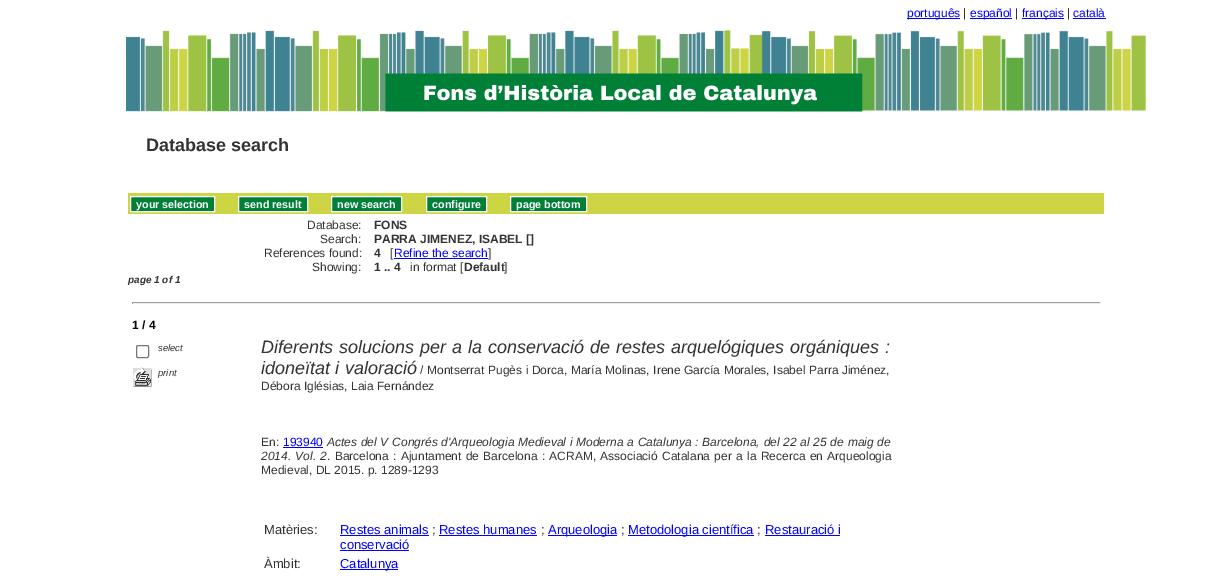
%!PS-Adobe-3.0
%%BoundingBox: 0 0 1231 581
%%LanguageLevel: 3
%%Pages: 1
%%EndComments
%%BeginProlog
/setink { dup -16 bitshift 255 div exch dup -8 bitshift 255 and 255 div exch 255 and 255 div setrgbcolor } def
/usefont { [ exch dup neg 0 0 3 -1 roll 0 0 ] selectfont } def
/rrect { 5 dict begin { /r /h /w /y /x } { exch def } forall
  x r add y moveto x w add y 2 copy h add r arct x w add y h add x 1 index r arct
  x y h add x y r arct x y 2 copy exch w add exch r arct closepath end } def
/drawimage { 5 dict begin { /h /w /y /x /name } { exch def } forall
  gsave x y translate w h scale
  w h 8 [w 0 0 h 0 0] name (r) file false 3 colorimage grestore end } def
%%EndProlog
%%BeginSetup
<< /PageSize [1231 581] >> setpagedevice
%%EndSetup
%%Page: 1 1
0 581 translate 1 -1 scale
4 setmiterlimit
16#FFFFFF setink
0 0 1231 581 rectfill
16#0000FF setink
907 18 53 1 rectfill
/LiberationSans-Regular 12 usefont
907 17 moveto (português) show
16#333333 setink
963 17 moveto (|) show
16#0000FF setink
970 18 42 1 rectfill
970 17 moveto (español) show
16#333333 setink
1015 17 moveto (|) show
16#0000FF setink
1022 18 42 1 rectfill
1022 17 moveto (français) show
16#333333 setink
1067 17 moveto (|) show
16#0000FF setink
1073 17 moveto (català) show
1073 18 33 1 rectfill
(img1.raw) 126 30 1020 82 drawimage
/LiberationSans-Bold 18 usefont
16#333333 setink
146 151 moveto (Database search) show
16#CDD545 setink
128 193 976 21 rectfill
16#008037 setink
130.5 196.5 moveto 214.5 196.5 lineto 214.5 211.5 lineto 130.5 211.5 lineto closepath gsave fill grestore
16#FFFFFF setink
stroke
/LiberationSans-Bold 10.75 usefont
136 208 moveto (your selection) show
16#008037 setink
238.5 196.5 moveto 307.5 196.5 lineto 307.5 211.5 lineto 238.5 211.5 lineto closepath gsave fill grestore
16#FFFFFF setink
stroke
244 208 moveto (send result) show
16#008037 setink
331.5 196.5 moveto 401.5 196.5 lineto 401.5 211.5 lineto 331.5 211.5 lineto closepath gsave fill grestore
16#FFFFFF setink
stroke
337 208 moveto (new search) show
16#008037 setink
426.5 196.5 moveto 486.5 196.5 lineto 486.5 211.5 lineto 426.5 211.5 lineto closepath gsave fill grestore
16#FFFFFF setink
stroke
432 208 moveto (configure) show
16#008037 setink
510.5 196.5 moveto 586.5 196.5 lineto 586.5 211.5 lineto 510.5 211.5 lineto closepath gsave fill grestore
16#FFFFFF setink
stroke
516 208 moveto (page bottom) show
/LiberationSans-Regular 12 usefont
16#333333 setink
307 229 moveto (Database:) show
/LiberationSans-Bold 12 usefont
374 229 moveto (FONS) show
/LiberationSans-Regular 12 usefont
320 243 moveto (Search:) show
/LiberationSans-Bold 12 usefont
374 243 moveto (PARRA JIMENEZ, ISABEL []) show
/LiberationSans-Regular 12 usefont
264 257 moveto (References found:) show
/LiberationSans-Bold 12 usefont
374 257 moveto (4) show
/LiberationSans-Regular 12 usefont
390 257 moveto ([) show
16#0000FF setink
394 257 moveto (Refine the search) show
394 258 94 1 rectfill
16#333333 setink
488 257 moveto (]) show
312 271 moveto (Showing:) show
/LiberationSans-Bold 12 usefont
374 271 moveto (1 .. 4) show
/LiberationSans-Regular 12 usefont
410 271 moveto (in format [) show
/LiberationSans-Bold 12 usefont
464 271 moveto (Default) show
/LiberationSans-Regular 12 usefont
504 271 moveto (]) show
/LiberationSans-BoldItalic 10 usefont
128 283 moveto (page 1 of 1) show
[
    [132 302 969 1 16#9F9F9F]
    [1100 302 1 2 16#EEEEEE]
    [132 303 969 1 16#EEEEEE]
    [132 302 1 2 16#9F9F9F]
] { aload pop setink rectfill } forall
/LiberationSans-Bold 12 usefont
16#000000 setink
132 329 moveto (1 / 4) show
16#767676 setink
136.5 345.5 12 12 1.5 rrect stroke
/LiberationSans-Italic 9.5 usefont
16#333333 setink
158 351 moveto (select) show
(img2.raw) 132 367 20 20 drawimage
158 376 moveto (print) show
/LiberationSans-Italic 18 usefont
261 353 moveto 1 0 32 (Diferents solucions per a la conservació de restes arquelógiques orgániques :) widthshow
261 374 moveto 0.25 0 32 (idoneïtat i valoració) widthshow
/LiberationSans-Regular 12 usefont
420 374 moveto (/) show
427 374 moveto 0.25 0 32 (Montserrat Pugès i Dorca, María Molinas, Irene García Morales, Isabel Parra Jiménez,) widthshow
261 390 moveto (Débora Iglésias, Laia Fernández) show
261 446 moveto (En:) show
16#0000FF setink
283 446 moveto (193940) show
283 447 40 1 rectfill
/LiberationSans-Italic 12 usefont
16#333333 setink
327 446 moveto 0.4 0 32 (Actes del V Congrés d'Arqueologia Medieval i Moderna a Catalunya : Barcelona, del 22 al 25 de maig de) widthshow
261 460 moveto 1 0 32 (2014. Vol. 2) widthshow
/LiberationSans-Regular 12 usefont
327 460 moveto 1 0 32 (. Barcelona : Ajuntament de Barcelona : ACRAM, Associació Catalana per a la Recerca en Arqueologia) widthshow
261 474 moveto (Medieval, DL 2015. p. 1289-1293) show
/LiberationSans-Regular 13 usefont
264 534 moveto (Matèries:) show
16#0000FF setink
340 534 moveto (Restes animals) show
340 535 89 1 rectfill
16#333333 setink
432 534 moveto (;) show
16#0000FF setink
439 535 98 1 rectfill
439 534 moveto (Restes humanes) show
16#333333 setink
541 534 moveto (;) show
16#0000FF setink
548 535 69 1 rectfill
548 534 moveto (Arqueologia) show
16#333333 setink
621 534 moveto (;) show
16#0000FF setink
628 535 126 1 rectfill
628 534 moveto (Metodologia científica) show
16#333333 setink
757 534 moveto (;) show
16#0000FF setink
765 534 moveto (Restauració i) show
765 535 75 1 rectfill
340 549 moveto (conservació) show
340 550 69 1 rectfill
16#333333 setink
264 568 moveto (Àmbit:) show
16#0000FF setink
340 569 58 1 rectfill
340 568 moveto (Catalunya) show
showpage
%%EOF
